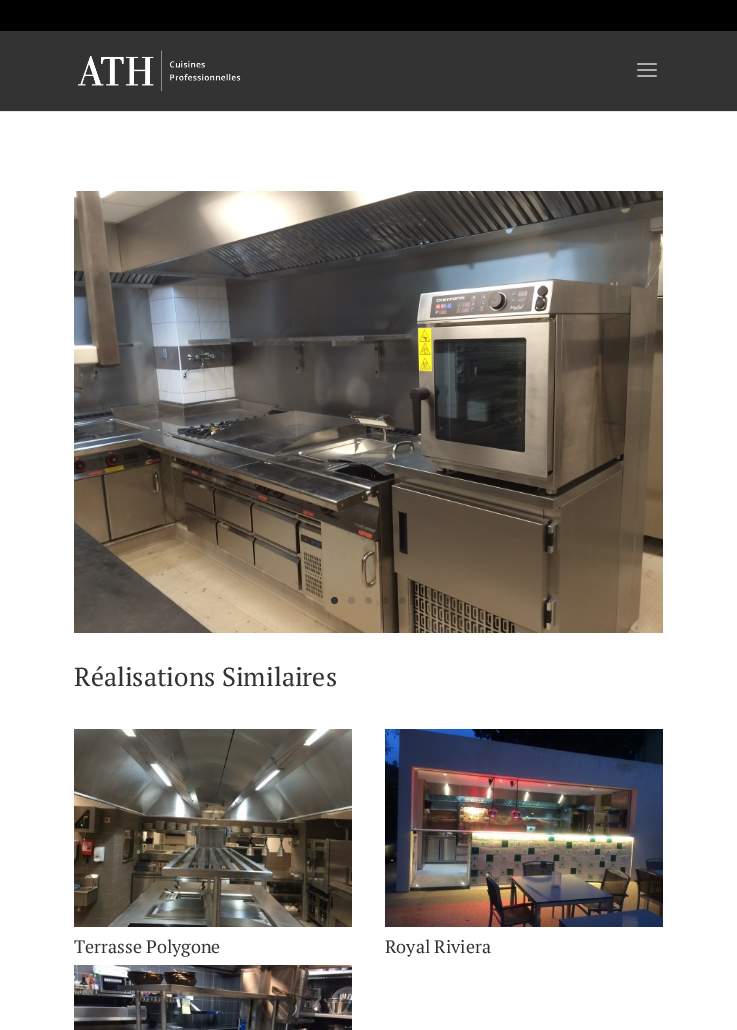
%!PS-Adobe-3.0
%%BoundingBox: 0 0 737 1030
%%LanguageLevel: 3
%%Pages: 1
%%EndComments
%%BeginProlog
/setink { dup -16 bitshift 255 div exch dup -8 bitshift 255 and 255 div exch 255 and 255 div setrgbcolor } def
/usefont { [ exch dup neg 0 0 3 -1 roll 0 0 ] selectfont } def
/setalpha { dup .setfillconstantalpha .setstrokeconstantalpha } def
/disc { newpath 0 360 arc closepath } def
/drawimage { 5 dict begin { /h /w /y /x /name } { exch def } forall
  gsave x y translate w h scale
  w h 8 [w 0 0 h 0 0] name (r) file false 3 colorimage grestore end } def
%%EndProlog
%%BeginSetup
<< /PageSize [737 1030] /PageUsesTransparency true >> setpagedevice
%%EndSetup
%%Page: 1 1
0 .pushpdf14devicefilter
0 1030 translate 1 -1 scale
4 setmiterlimit
16#000000 setink
0 0 737 1030 rectfill
16#E6E6E6 setink
0 111 737 1 rectfill
16#333333 setink
0 31 737 80 rectfill
(img1.raw) 78 50 163 42 drawimage
(img2.raw) 637 63 20 14 drawimage
16#FFFFFF setink
0 112 737 918 rectfill
(img3.raw) 74 191 589 442 drawimage
16#333333 setink
334.5 600.5 3.5 disc fill
0.15 setalpha
16#000000 setink
351.5 600.5 3.5 disc fill
368.5 600.5 3.5 disc fill
385.5 600.5 3.5 disc fill
402.5 600.5 3.5 disc fill
/PTSerif-Regular 26 usefont
1 setalpha
16#333333 setink
74 686 moveto (Réalisations Similaires) show
(img4.raw) 74 729 278 198 drawimage
/PTSerif-Regular 18 usefont
74 953 moveto (Terrasse Polygone) show
(img5.raw) 385 729 278 198 drawimage
385 953 moveto (Royal Riviera) show
(img6.raw) 74 965 278 65 drawimage
.poppdf14devicefilter showpage
%%EOF
